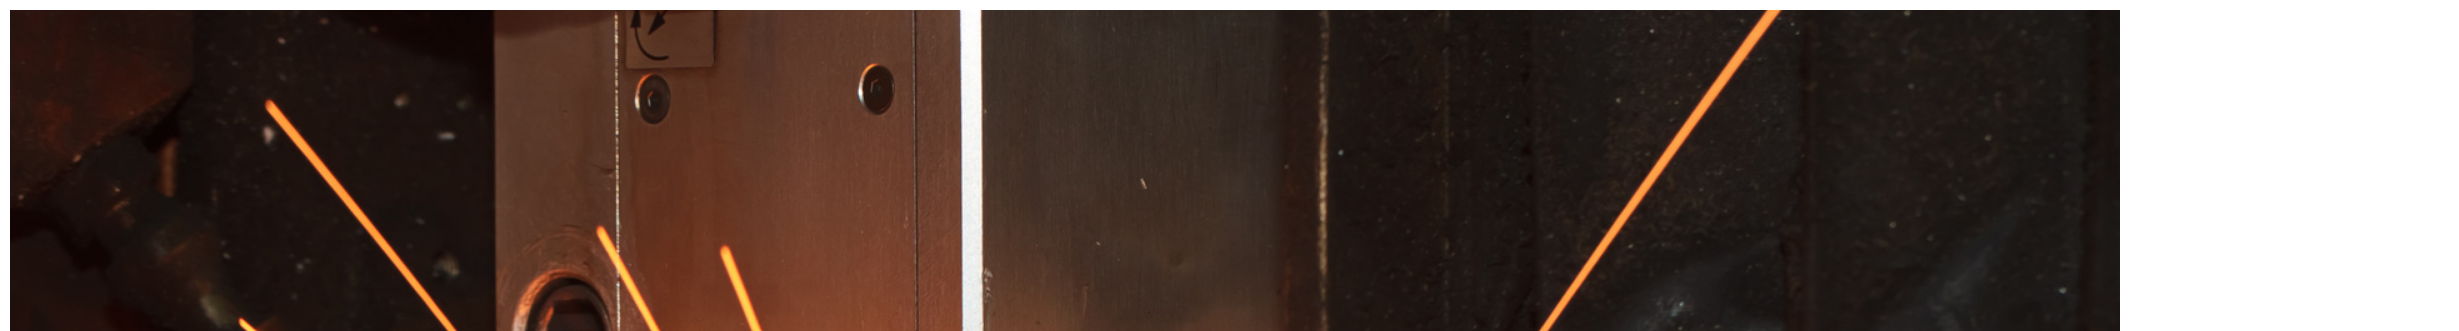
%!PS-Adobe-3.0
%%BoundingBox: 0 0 2459 331
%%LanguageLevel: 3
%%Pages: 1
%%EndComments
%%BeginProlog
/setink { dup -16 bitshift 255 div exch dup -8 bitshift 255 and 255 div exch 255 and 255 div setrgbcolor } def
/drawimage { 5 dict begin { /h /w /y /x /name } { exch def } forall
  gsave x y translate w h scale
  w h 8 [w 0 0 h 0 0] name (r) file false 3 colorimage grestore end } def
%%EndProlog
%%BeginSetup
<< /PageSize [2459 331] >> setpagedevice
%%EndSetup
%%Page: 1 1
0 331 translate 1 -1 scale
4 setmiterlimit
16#FFFFFF setink
0 0 2459 331 rectfill
(img1.raw) 10 10 2110 321 drawimage
showpage
%%EOF
